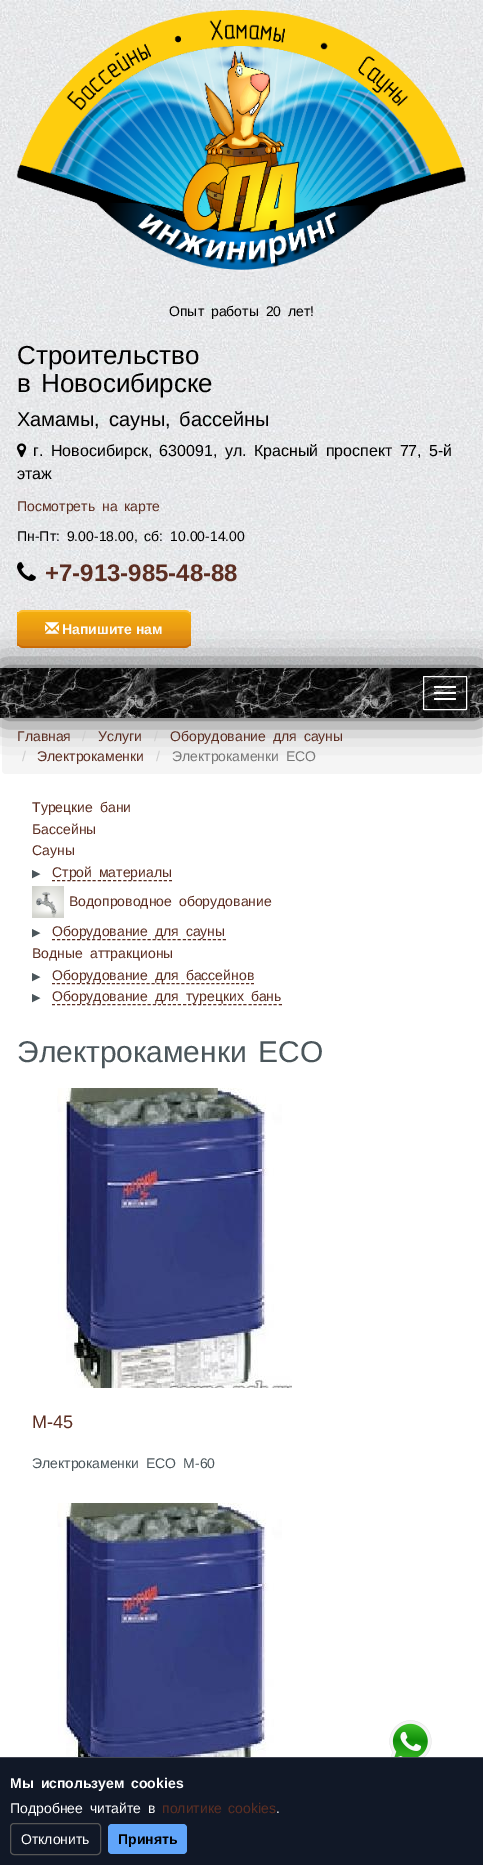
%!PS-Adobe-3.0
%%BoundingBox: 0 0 483 1865
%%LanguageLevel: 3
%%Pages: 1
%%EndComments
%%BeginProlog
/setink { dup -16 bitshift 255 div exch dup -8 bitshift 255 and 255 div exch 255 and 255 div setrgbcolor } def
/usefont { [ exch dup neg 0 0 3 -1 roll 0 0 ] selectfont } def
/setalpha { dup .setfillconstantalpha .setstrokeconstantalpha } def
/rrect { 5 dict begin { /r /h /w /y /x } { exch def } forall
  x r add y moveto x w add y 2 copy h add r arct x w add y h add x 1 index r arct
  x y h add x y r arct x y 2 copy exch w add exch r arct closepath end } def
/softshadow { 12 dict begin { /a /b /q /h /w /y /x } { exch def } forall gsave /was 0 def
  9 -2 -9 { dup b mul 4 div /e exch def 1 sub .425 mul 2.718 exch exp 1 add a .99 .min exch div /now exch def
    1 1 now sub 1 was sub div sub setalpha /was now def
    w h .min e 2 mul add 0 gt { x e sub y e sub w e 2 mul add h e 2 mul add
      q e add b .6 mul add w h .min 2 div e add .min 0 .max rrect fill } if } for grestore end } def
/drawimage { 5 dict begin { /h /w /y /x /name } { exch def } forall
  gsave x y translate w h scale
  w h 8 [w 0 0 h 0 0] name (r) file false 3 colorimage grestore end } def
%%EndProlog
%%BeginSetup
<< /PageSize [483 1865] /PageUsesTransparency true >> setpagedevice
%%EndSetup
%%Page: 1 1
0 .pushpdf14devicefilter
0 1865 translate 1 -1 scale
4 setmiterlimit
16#FFFFFF setink
0 0 483 1865 rectfill
(img1.raw) 0 0 483 668 drawimage
(img2.raw) 16 10 450 262 drawimage
/LiberationSans-Regular 14 usefont
16#000000 setink
169 316 moveto 3 0 32 (Опыт работы 20 лет!) widthshow
/LiberationSans-Regular 26 usefont
17 364 moveto (Строительство) show
17 392 moveto 3 0 32 (в Новосибирске) widthshow
/LiberationSans-Regular 20 usefont
17 426 moveto 3 0 32 (Хамамы, сауны, бассейны) widthshow
(img3.raw) 17 443 10 15 drawimage
/LiberationSans-Regular 16 usefont
33 456 moveto 3 0 32 (г. Новосибирск, 630091, ул. Красный проспект 77, 5-й) widthshow
17 479 moveto (этаж) show
/LiberationSans-Regular 14 usefont
16#5C2E22 setink
17 511 moveto 3 0 32 (Посмотреть на карте) widthshow
16#000000 setink
17 541 moveto 3 0 32 (Пн-Пт: 9.00-18.00, сб: 10.00-14.00) widthshow
(img4.raw) 17 562 19 19 drawimage
/LiberationSans-Bold 24 usefont
16#5C2E22 setink
45 581 moveto (+7-913-985-48-88) show
gsave
17 610 174 38 6 rrect clip newpath
gsave 17 612 moveto 191 612 lineto 191 646 lineto 17 646 lineto closepath clip newpath
<< /ShadingType 2 /ColorSpace /DeviceRGB /Coords [104 612 104 646] /Extend [true true] /Function << /FunctionType 2 /Domain [0 1] /C0 [0.953 0.682 0.059] /C1 [0.89 0.537 0.086] /N 1 >> >> shfill grestore
grestore
16#FDBE33 setink
23 610 moveto 20 610 17 613 17 616 curveto 17 614 20 612 23 612 curveto 185 612 lineto 188 612 191 614 191 616 curveto 191 613 188 610 185 610 curveto closepath fill
16#D77206 setink
185 648 moveto 188 648 191 645 191 642 curveto 191 644 188 646 185 646 curveto 23 646 lineto 20 646 17 644 17 642 curveto 17 645 20 648 23 648 curveto closepath fill
(img5.raw) 45 622 14 12 drawimage
/LiberationSans-Bold 14 usefont
16#FFFFFF setink
62 634 moveto (Напишите нам) show
16#F5F5F5 setink
2 718 480 56 4 rrect fill
16#000000 setink
1 669 481 48 0 17 0.75 softshadow
(img6.raw) 0 668 483 50 drawimage
16#FFFFFF setink
423.5 676.5 43 33 0.5 rrect stroke
434 686 22 2 1 rrect fill
434 692 22 2 1 rrect fill
434 698 22 2 1 rrect fill
/LiberationSans-Regular 14 usefont
16#5C2E22 setink
17 741 moveto (Главная) show
16#CCCCCC setink
82 741 moveto (/) show
16#5C2E22 setink
98 741 moveto (Услуги) show
16#CCCCCC setink
154 741 moveto (/) show
16#5C2E22 setink
170 741 moveto 3 0 32 (Оборудование для сауны) widthshow
16#CCCCCC setink
22 761 moveto (/) show
16#5C2E22 setink
37 761 moveto (Электрокаменки) show
16#CCCCCC setink
156 761 moveto (/) show
16#777777 setink
172 761 moveto 3 0 32 (Электрокаменки ECO) widthshow
16#5C2E22 setink
32 812 moveto 3 0 32 (Турецкие бани) widthshow
32 834 moveto (Бассейны) show
32 855 moveto (Сауны) show
/DejaVuSans-Regular 11 usefont
16#4B565B setink
32 877 moveto (▶) show
/LiberationSans-Regular 14 usefont
16#5C2E22 setink
52 877 moveto 3 0 32 (Строй материалы) widthshow
[3 2.09] 0 setdash
52 880.5 moveto 172 880.5 lineto stroke
(img7.raw) 32 886 32 32 drawimage
69 906 moveto 3 0 32 (Водопроводное оборудование) widthshow
/DejaVuSans-Regular 11 usefont
16#4B565B setink
32 936 moveto (▶) show
/LiberationSans-Regular 14 usefont
16#5C2E22 setink
52 936 moveto 3 0 32 (Оборудование для сауны) widthshow
[3 2.03] 0 setdash
52 939.5 moveto 226 939.5 lineto stroke
32 958 moveto 3 0 32 (Водные аттракционы) widthshow
/DejaVuSans-Regular 11 usefont
16#4B565B setink
32 980 moveto (▶) show
/LiberationSans-Regular 14 usefont
16#5C2E22 setink
52 980 moveto 3 0 32 (Оборудование для бассейнов) widthshow
[3 1.98] 0 setdash
52 983.5 moveto 254 983.5 lineto stroke
/DejaVuSans-Regular 11 usefont
16#4B565B setink
32 1001 moveto (▶) show
/LiberationSans-Regular 14 usefont
16#5C2E22 setink
52 1001 moveto 3 0 32 (Оборудование для турецких бань) widthshow
[3 2.04] 0 setdash
52 1004.5 moveto 282 1004.5 lineto stroke
/LiberationSans-Regular 30 usefont
16#4B565B setink
17 1062 moveto 3 0 32 (Электрокаменки ECO) widthshow
(img8.raw) 57 1088 235 300 drawimage
/LiberationSans-Regular 18 usefont
16#5C2E22 setink
32 1428 moveto (M-45) show
/LiberationSans-Regular 14 usefont
16#4B565B setink
32 1468 moveto 3 0 32 (Электрокаменки ECO M-60) widthshow
(img9.raw) 57 1503 235 254 drawimage
(img10.raw) 389 1720 43 37 drawimage
16#111827 setink
0 1758 483 107 rectfill
16#414652 setink
0 1757 483 1 rectfill
/LiberationSans-Bold 14 usefont
16#FFFFFF setink
10 1788 moveto 3 0 32 (Мы используем cookies) widthshow
/LiberationSans-Regular 14 usefont
10 1813 moveto 3 0 32 (Подробнее читайте в) widthshow
16#5C2E22 setink
162 1813 moveto 3 0 32 (политике cookies) widthshow
16#FFFFFF setink
276 1813 moveto (.) show
16#555555 setink
[] 0 setdash
10.5 1823.5 90 31 3.5 rrect stroke
16#FFFFFF setink
21 1844 moveto (Отклонить) show
16#60A5FA setink
108 1824 79 30 4 rrect fill
/LiberationSans-Bold 14 usefont
16#000000 setink
118 1844 moveto (Принять) show
.poppdf14devicefilter showpage
%%EOF
